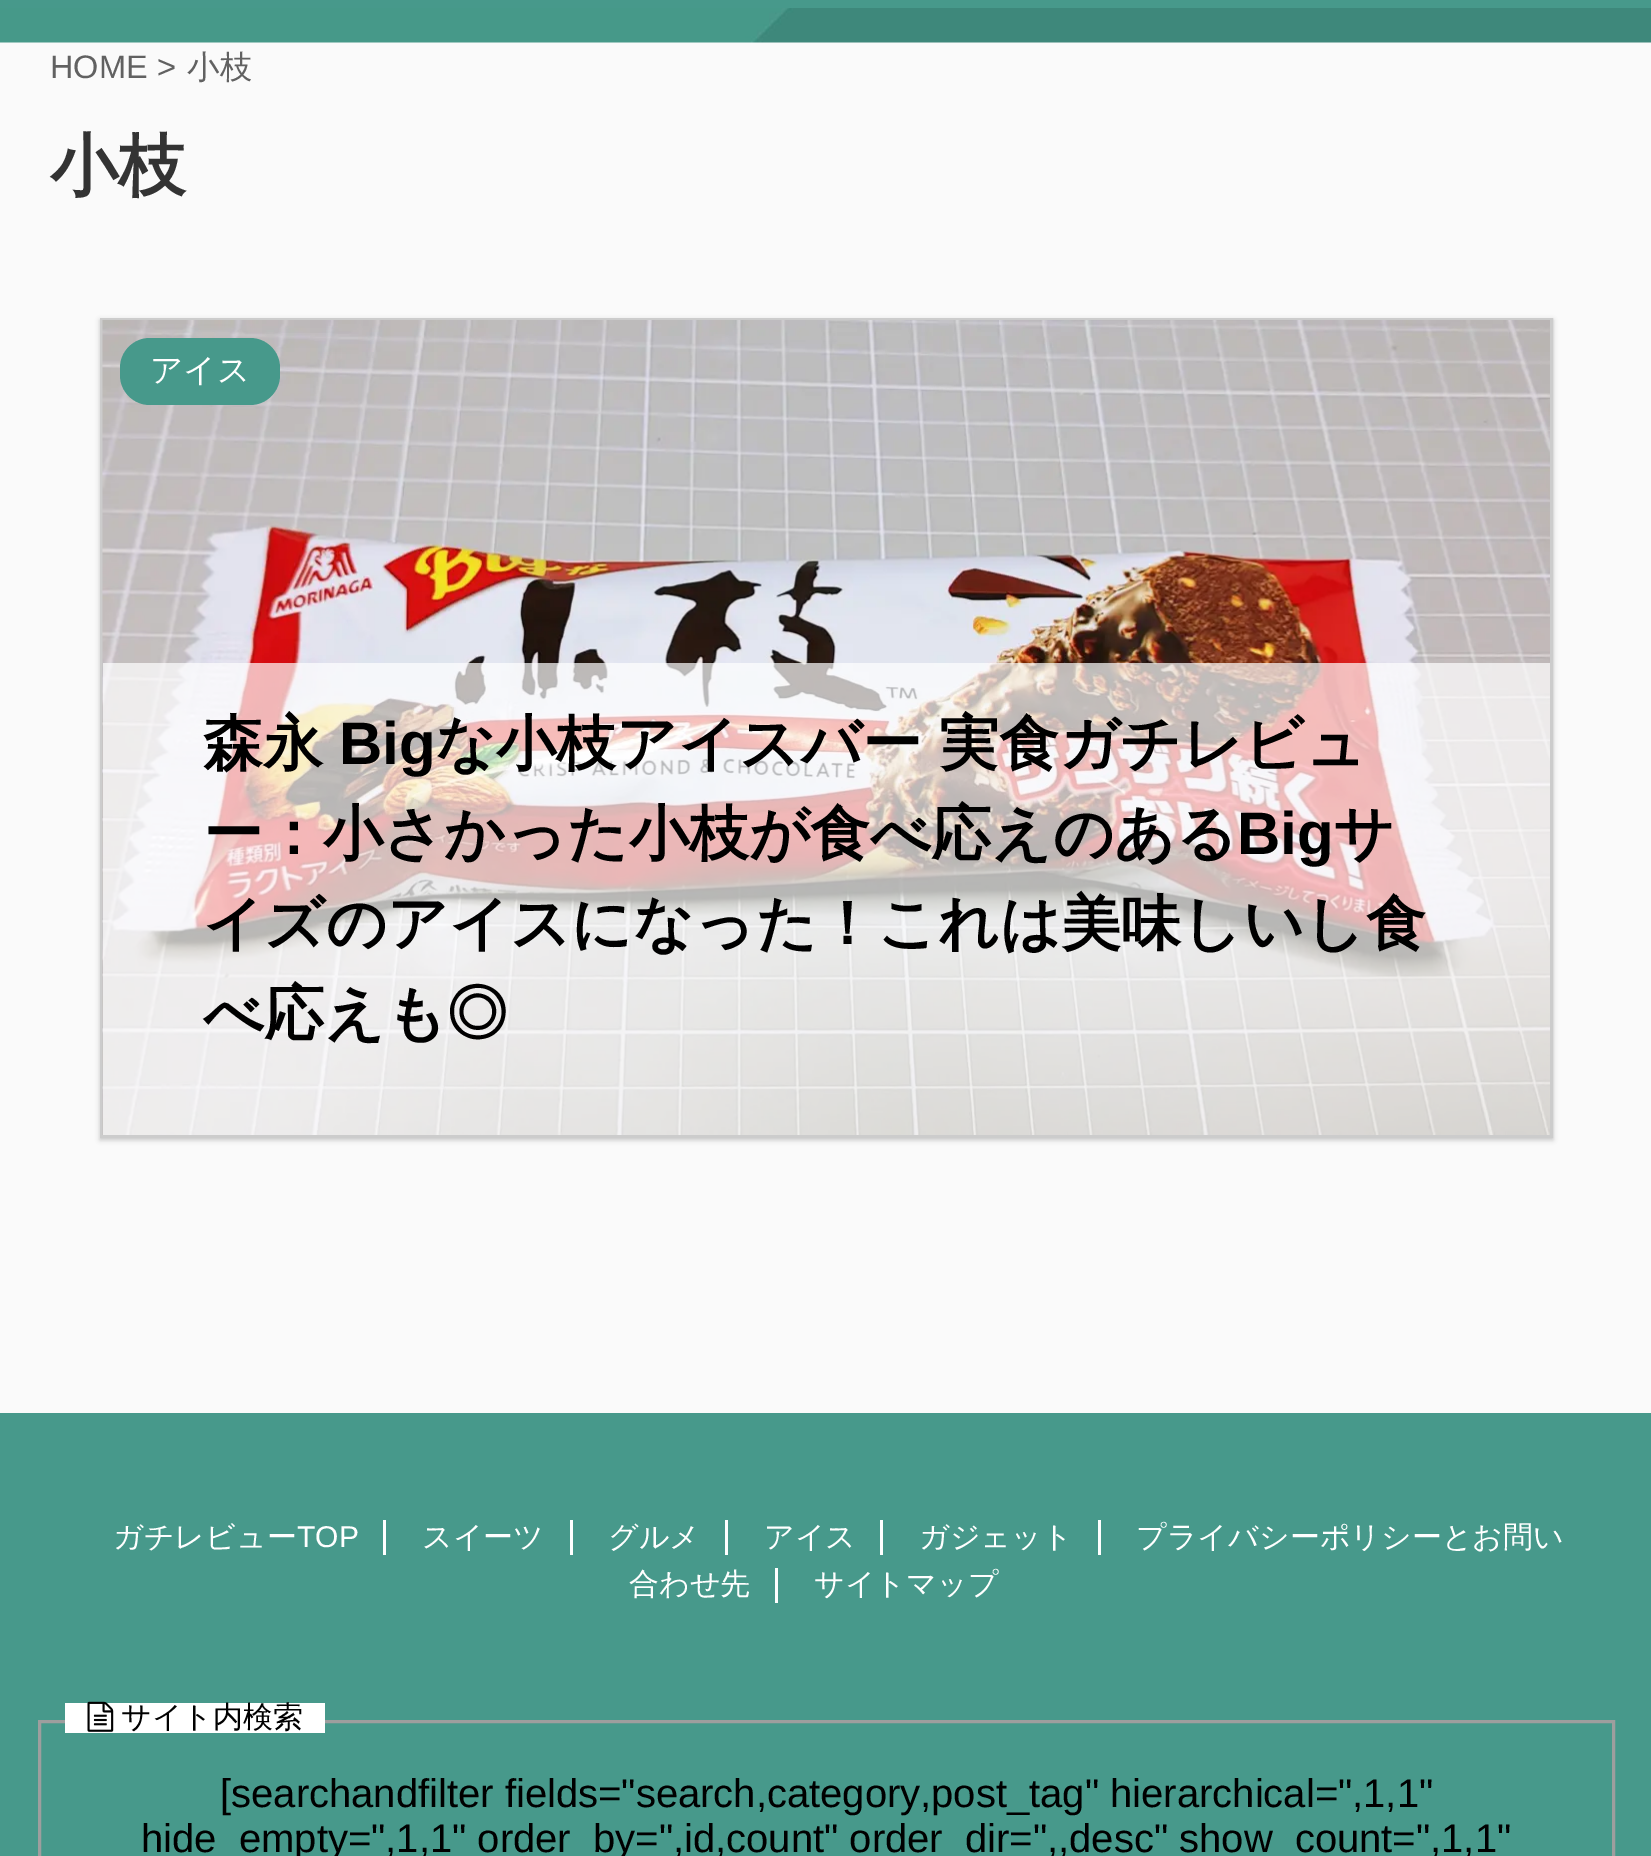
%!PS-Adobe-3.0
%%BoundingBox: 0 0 1651 1856
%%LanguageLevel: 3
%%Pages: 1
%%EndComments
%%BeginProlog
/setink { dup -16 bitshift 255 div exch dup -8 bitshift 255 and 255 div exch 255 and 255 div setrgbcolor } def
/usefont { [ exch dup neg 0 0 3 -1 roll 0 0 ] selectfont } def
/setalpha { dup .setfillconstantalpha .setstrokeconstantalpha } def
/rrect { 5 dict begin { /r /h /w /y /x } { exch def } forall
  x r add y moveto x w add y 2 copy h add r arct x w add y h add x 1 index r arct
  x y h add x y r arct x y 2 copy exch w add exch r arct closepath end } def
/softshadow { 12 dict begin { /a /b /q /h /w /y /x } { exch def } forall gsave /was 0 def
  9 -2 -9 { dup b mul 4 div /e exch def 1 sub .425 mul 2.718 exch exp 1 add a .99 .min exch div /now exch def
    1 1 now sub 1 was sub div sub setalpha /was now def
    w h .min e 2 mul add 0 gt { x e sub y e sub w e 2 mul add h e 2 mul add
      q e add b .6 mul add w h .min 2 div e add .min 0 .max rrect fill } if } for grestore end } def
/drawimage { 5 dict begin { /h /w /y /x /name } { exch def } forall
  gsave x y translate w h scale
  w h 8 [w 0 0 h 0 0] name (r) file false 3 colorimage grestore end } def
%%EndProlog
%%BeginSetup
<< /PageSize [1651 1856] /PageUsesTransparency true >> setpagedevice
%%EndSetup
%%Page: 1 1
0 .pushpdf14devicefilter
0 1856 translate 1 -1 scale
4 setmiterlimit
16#FAFAFA setink
0 0 1651 1856 rectfill
(img1.raw) 0 8 1651 35 drawimage
16#47998B setink
0 0 1651 8 rectfill
/LiberationSans-Regular 32.5 usefont
16#616161 setink
50 78 moveto (HOME >) show
/WenQuanYiZenHei-Medium 32.5 usefont
187 78 moveto (小枝) show
/WenQuanYiZenHei-Bold 68 usefont
16#333333 setink
50 189 moveto (小枝) show
16#000000 setink
100 320 1453 820 0 2.5 0.2 softshadow
16#CCCCCC setink
3 setlinewidth
101.5 319.5 1450 817 rectstroke
(img2.raw) 102 320 1448 815 drawimage
16#47998B setink
120 338 160 67 30 rrect fill
/WenQuanYiZenHei-Medium 32.5 usefont
16#FFFFFF setink
150 381 moveto (アイス) show
0.7 setalpha
103 663 1447 472 rectfill
/WenQuanYiZenHei-Bold 60 usefont
1 setalpha
16#000000 setink
203 764 moveto (森永) show
/LiberationSans-Bold 60 usefont
339 764 moveto (Big) show
/WenQuanYiZenHei-Bold 60 usefont
435 764 moveto -1 0 32 (な小枝アイスバー 実食ガチレビュ) widthshow
203 854 moveto (ー：小さかった小枝が食べ応えのある) show
/LiberationSans-Bold 60 usefont
1237 854 moveto (Big) show
/WenQuanYiZenHei-Bold 60 usefont
[
    [(サ) 1333 854]
    [(イズのアイスになった！これは美味しいし食) 203 944]
    [(べ応えも◎) 203 1034]
] { aload pop moveto show } forall
16#47998B setink
0 1413 1651 443 rectfill
/WenQuanYiZenHei-Medium 30 usefont
16#FFFFFF setink
113 1547 moveto (ガチレビュー) show
/LiberationSans-Regular 30 usefont
297 1547 moveto (TOP) show
383 1520 3 35 rectfill
/WenQuanYiZenHei-Medium 30 usefont
422 1547 moveto (スイーツ) show
570 1520 3 35 rectfill
608 1547 moveto (グルメ) show
725 1520 3 35 rectfill
764 1547 moveto (アイス) show
880 1520 3 35 rectfill
919 1547 moveto (ガジェット) show
1098 1520 3 35 rectfill
1136 1547 moveto (プライバシーポリシーとお問い) show
629 1594 moveto (合わせ先) show
775 1568 3 35 rectfill
814 1594 moveto (サイトマップ) show
16#9E9E9E setink
39.5 1721.5 1574 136 rectstroke
16#FFFFFF setink
65 1703 260 30 rectfill
(img3.raw) 87 1701 27 31 drawimage
16#000000 setink
121 1727 moveto (サイト内検索) show
/LiberationSans-Regular 40 usefont
220 1807 moveto ([searchandfilter fields="search,category,post_tag" hierarchical=",1,1") show
141 1852 moveto (hide_empty=",1,1" order_by=",id,count" order_dir=",,desc" show_count=",1,1") show
.poppdf14devicefilter showpage
%%EOF
